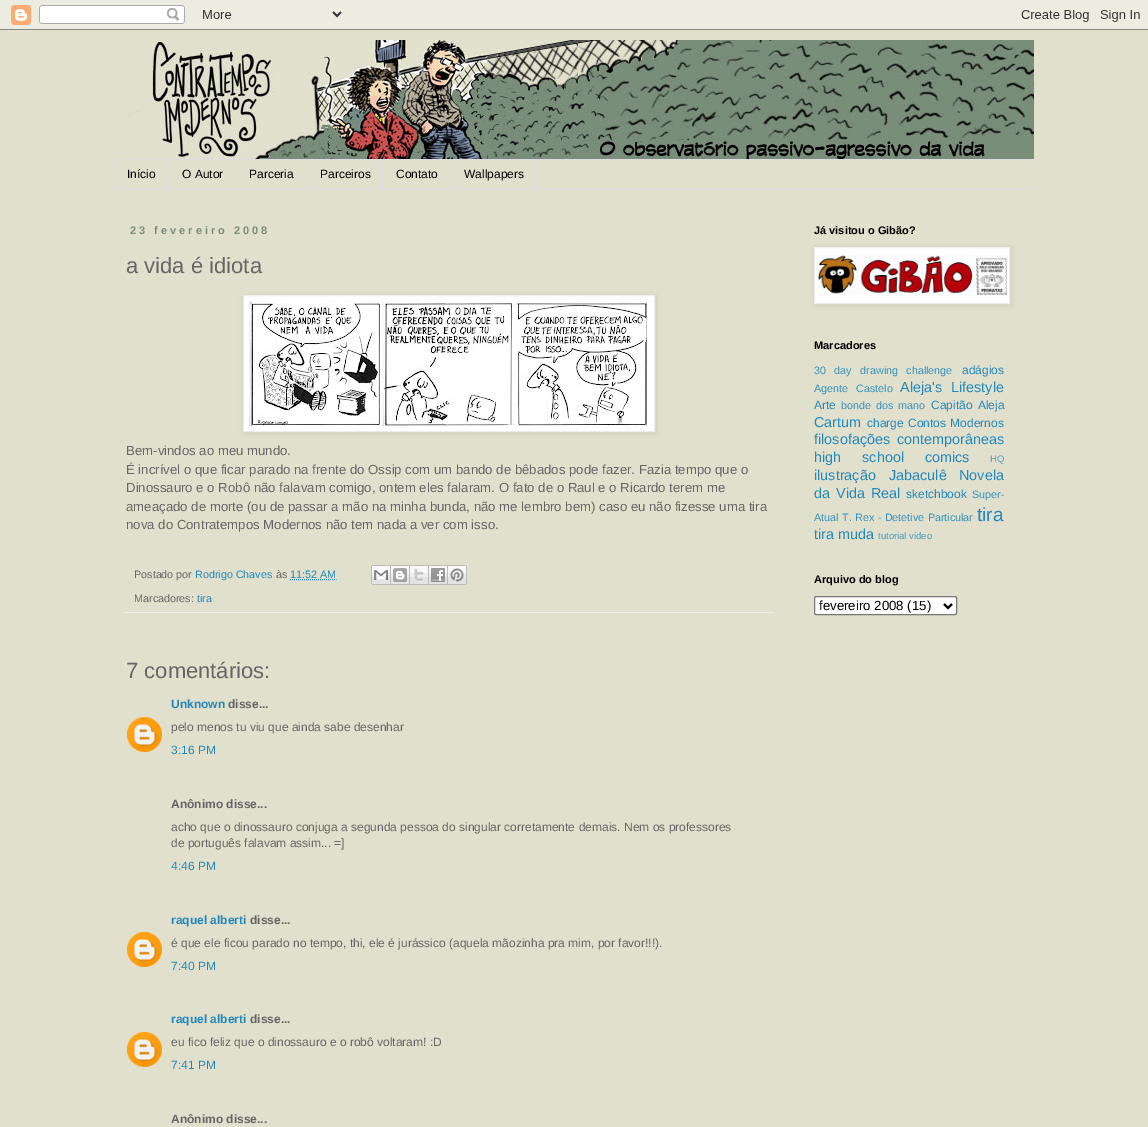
%!PS-Adobe-3.0
%%BoundingBox: 0 0 1148 1127
%%LanguageLevel: 3
%%Pages: 1
%%EndComments
%%BeginProlog
/setink { dup -16 bitshift 255 div exch dup -8 bitshift 255 and 255 div exch 255 and 255 div setrgbcolor } def
/usefont { [ exch dup neg 0 0 3 -1 roll 0 0 ] selectfont } def
/setalpha { dup .setfillconstantalpha .setstrokeconstantalpha } def
/rrect { 5 dict begin { /r /h /w /y /x } { exch def } forall
  x r add y moveto x w add y 2 copy h add r arct x w add y h add x 1 index r arct
  x y h add x y r arct x y 2 copy exch w add exch r arct closepath end } def
/softshadow { 12 dict begin { /a /b /q /h /w /y /x } { exch def } forall gsave /was 0 def
  9 -2 -9 { dup b mul 4 div /e exch def 1 sub .425 mul 2.718 exch exp 1 add a .99 .min exch div /now exch def
    1 1 now sub 1 was sub div sub setalpha /was now def
    w h .min e 2 mul add 0 gt { x e sub y e sub w e 2 mul add h e 2 mul add
      q e add b .6 mul add w h .min 2 div e add .min 0 .max rrect fill } if } for grestore end } def
/drawimage { 5 dict begin { /h /w /y /x /name } { exch def } forall
  gsave x y translate w h scale
  w h 8 [w 0 0 h 0 0] name (r) file false 3 colorimage grestore end } def
%%EndProlog
%%BeginSetup
<< /PageSize [1148 1127] /PageUsesTransparency true >> setpagedevice
%%EndSetup
%%Page: 1 1
0 .pushpdf14devicefilter
0 1127 translate 1 -1 scale
4 setmiterlimit
16#E1E0CD setink
0 0 1148 1127 rectfill
(img1.raw) 0 0 1148 30 drawimage
(img2.raw) 126 40 908 119 drawimage
16#DDDDDD setink
114.5 159.5 919 29 rectstroke
168 160 1 28 rectfill
/LiberationSans-Regular 12 usefont
16#000000 setink
127 178 moveto (Início) show
16#DDDDDD setink
235 160 1 28 rectfill
16#000000 setink
182 178 moveto (O Autor) show
16#DDDDDD setink
306 160 1 28 rectfill
16#000000 setink
249 178 moveto (Parceria) show
16#DDDDDD setink
382 160 1 28 rectfill
16#000000 setink
320 178 moveto (Parceiros) show
16#DDDDDD setink
450 160 1 28 rectfill
16#000000 setink
396 178 moveto (Contato) show
16#DDDDDD setink
536 160 1 28 rectfill
16#000000 setink
464 178 moveto (Wallpapers) show
/LiberationSans-Bold 11 usefont
16#798D79 setink
130 234 moveto 3 0 (23 fevereiro 2008) ashow
/LiberationSans-Regular 22 usefont
16#666666 setink
126 273 moveto (a vida é idiota) show
16#000000 setink
244 296 412 137 0 2.5 0.1 softshadow
16#FFFFFF setink
243.5 295.5 moveto 654.5 295.5 lineto 654.5 431.5 lineto 243.5 431.5 lineto closepath gsave fill grestore
16#EEEEEE setink
stroke
(img3.raw) 249 301 400 125 drawimage
/LiberationSans-Regular 13.2 usefont
16#666666 setink
[
    [(Bem-vindos ao meu mundo.) 126 455]
    [(É incrível o que ficar parado na frente do Ossip com um bando de bêbados pode fazer. Fazia tempo que o) 126 474]
    [(Dinossauro e o Robô não falavam comigo, ontem eles falaram. O fato de o Raul e o Ricardo terem me) 126 492]
    [(ameaçado de morte \(ou de passar a mão na minha bunda, não me lembro bem\) caso eu não fizesse uma tira) 126 511]
    [(nova do Contratempos Modernos não tem nada a ver com isso.) 126 529]
] { aload pop moveto show } forall
16#EEEEEE setink
124 612 650 1 rectfill
/LiberationSans-Regular 10.75 usefont
16#666666 setink
134 578 moveto (Postado por) show
16#2288BB setink
195 578 moveto (Rodrigo Chaves) show
16#666666 setink
276 578 moveto (às) show
16#2288BB setink
290 578 moveto (11:52 AM) show
[1 1] 0 setdash
290 579.5 moveto 336.5 579.5 lineto stroke
(img4.raw) 371 565 20 20 drawimage
(img5.raw) 391 565 19 20 drawimage
(img6.raw) 410 565 19 20 drawimage
(img7.raw) 429 565 19 20 drawimage
(img8.raw) 448 565 19 20 drawimage
16#666666 setink
134 602 moveto (Marcadores:) show
16#2288BB setink
197 602 moveto (tira) show
/LiberationSans-Regular 22 usefont
16#666666 setink
126 678 moveto (7 comentários:) show
/LiberationSans-Bold 12 usefont
16#2288BB setink
171 708 moveto (Unknown) show
16#666666 setink
228 708 moveto (disse...) show
(img9.raw) 127 717 35 35 drawimage
/LiberationSans-Regular 12 usefont
171 731 moveto (pelo menos tu viu que ainda sabe desenhar) show
16#2288BB setink
171 754 moveto (3:16 PM) show
/LiberationSans-Bold 12 usefont
16#666666 setink
171 808 moveto (Anônimo disse...) show
/LiberationSans-Regular 12 usefont
171 831 moveto (acho que o dinossauro conjuga a segunda pessoa do singular corretamente demais. Nem os professores) show
171 847 moveto (de português falavam assim... =]) show
16#2288BB setink
171 870 moveto (4:46 PM) show
/LiberationSans-Bold 12 usefont
171 924 moveto (raquel alberti) show
16#666666 setink
250 924 moveto (disse...) show
(img9.raw) 127 932 35 35 drawimage
/LiberationSans-Regular 12 usefont
171 947 moveto (é que ele ficou parado no tempo, thi, ele é jurássico \(aquela mãozinha pra mim, por favor!!!\).) show
16#2288BB setink
171 970 moveto (7:40 PM) show
/LiberationSans-Bold 12 usefont
171 1023 moveto (raquel alberti) show
16#666666 setink
250 1023 moveto (disse...) show
(img9.raw) 127 1032 35 35 drawimage
/LiberationSans-Regular 12 usefont
171 1046 moveto (eu fico feliz que o dinossauro e o robô voltaram! :D) show
16#2288BB setink
171 1069 moveto (7:41 PM) show
/LiberationSans-Bold 12 usefont
16#666666 setink
171 1123 moveto (Anônimo disse...) show
/LiberationSans-Bold 11 usefont
16#000000 setink
814 234 moveto (Já visitou o Gibão?) show
815 248 196 57 0 2.5 0.1 softshadow
16#FFFFFF setink
814.5 247.5 moveto 1009.5 247.5 lineto 1009.5 303.5 lineto 814.5 303.5 lineto closepath gsave fill grestore
16#EEEEEE setink
[] 0 setdash
stroke
(img10.raw) 817 255 190 40 drawimage
16#000000 setink
814 349 moveto (Marcadores) show
/LiberationSans-Regular 10.75 usefont
16#3591BD setink
814 374 moveto 5.5 0 32 (30 day drawing challenge) widthshow
/LiberationSans-Regular 12 usefont
16#2288BB setink
962 374 moveto (adágios) show
/LiberationSans-Regular 10.75 usefont
16#3591BD setink
814 392 moveto 5 0 32 (Agente Castelo) widthshow
/LiberationSans-Regular 14.4 usefont
16#2288BB setink
900 392 moveto 5 0 32 (Aleja's Lifestyle) widthshow
/LiberationSans-Regular 12 usefont
814 409 moveto (Arte) show
/LiberationSans-Regular 10.75 usefont
16#3591BD setink
841 409 moveto 2 0 32 (bonde dos mano) widthshow
/LiberationSans-Regular 12 usefont
16#2288BB setink
931 409 moveto 2 0 32 (Capitão Aleja) widthshow
/LiberationSans-Regular 14.4 usefont
814 427 moveto (Cartum) show
/LiberationSans-Regular 12 usefont
867 427 moveto (charge) show
908 427 moveto 1 0 32 (Contos Modernos) widthshow
/LiberationSans-Regular 14.4 usefont
814 444 moveto 3 0 32 (filosofações contemporâneas) widthshow
814 462 moveto 17 0 32 (high school comics) widthshow
/LiberationSans-Regular 9.5 usefont
16#489ABF setink
990 462 moveto (HQ) show
/LiberationSans-Regular 14.4 usefont
16#2288BB setink
[
    [(ilustração) 814 480]
    [(Jabaculê) 889 480]
    [(Novela) 959 480]
] { aload pop moveto show } forall
814 498 moveto 2 0 32 (da Vida Real) widthshow
/LiberationSans-Regular 12 usefont
906 498 moveto (sketchbook) show
/LiberationSans-Regular 10.75 usefont
16#3591BD setink
972 498 moveto (Super-) show
814 521 moveto (Atual) show
842 521 moveto 0.5 0 32 (T. Rex - Detetive Particular) widthshow
/LiberationSans-Regular 19 usefont
16#2288BB setink
977 521 moveto (tira) show
/LiberationSans-Regular 14.4 usefont
814 539 moveto (tira muda) show
/LiberationSans-Regular 9.5 usefont
16#489ABF setink
878 539 moveto (tutorial video) show
/LiberationSans-Bold 11 usefont
16#000000 setink
814 583 moveto (Arquivo do blog) show
16#FFFFFF setink
814.5 596.5 142 18 1.5 rrect gsave fill grestore
16#767676 setink
stroke
16#000000 setink
2 setlinewidth
944 604 moveto 948 608 lineto 952 604 lineto stroke
/LiberationSans-Regular 13.25 usefont
819 610 moveto (fevereiro 2008 \(15\)) show
.poppdf14devicefilter showpage
%%EOF
